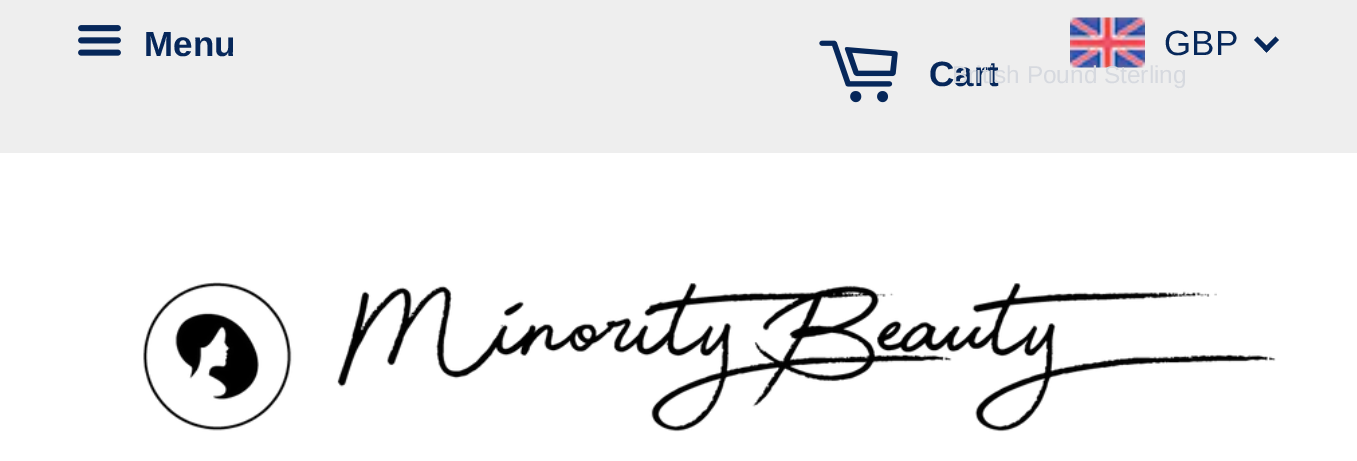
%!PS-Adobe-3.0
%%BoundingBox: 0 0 1357 461
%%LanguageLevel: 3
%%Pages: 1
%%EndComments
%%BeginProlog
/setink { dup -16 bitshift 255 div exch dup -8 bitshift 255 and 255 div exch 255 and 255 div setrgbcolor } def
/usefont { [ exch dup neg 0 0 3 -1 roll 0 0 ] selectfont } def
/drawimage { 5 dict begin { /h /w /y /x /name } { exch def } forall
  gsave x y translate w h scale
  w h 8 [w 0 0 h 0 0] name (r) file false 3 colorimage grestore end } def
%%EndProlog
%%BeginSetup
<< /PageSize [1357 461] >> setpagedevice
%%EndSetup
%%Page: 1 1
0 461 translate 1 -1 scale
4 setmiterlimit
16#FFFFFF setink
0 0 1357 461 rectfill
16#EEEEEE setink
0 0 1357 153 rectfill
(img1.raw) 78 25 43 31 drawimage
/LiberationSans-Bold 35 usefont
16#06275A setink
144 56 moveto (Menu) show
(img2.raw) 1070 17 75 51 drawimage
/LiberationSans-Regular 35 usefont
1164 55 moveto (GBP) show
1275.5 36.5 moveto 1279 40 lineto 1266.5 52.5 lineto 1263 49 lineto closepath fill
1257.5 36.5 moveto 1270 49 lineto 1266.5 52.5 lineto 1254 40 lineto closepath fill
/LiberationSans-Bold 35 usefont
929 86 moveto (Cart) show
/LiberationSans-Regular 24.4 usefont
16#D6D9DF setink
952 83 moveto (British Pound Sterling) show
(img3.raw) 819 40 79 63 drawimage
(img4.raw) 143 282 1133 150 drawimage
showpage
%%EOF
